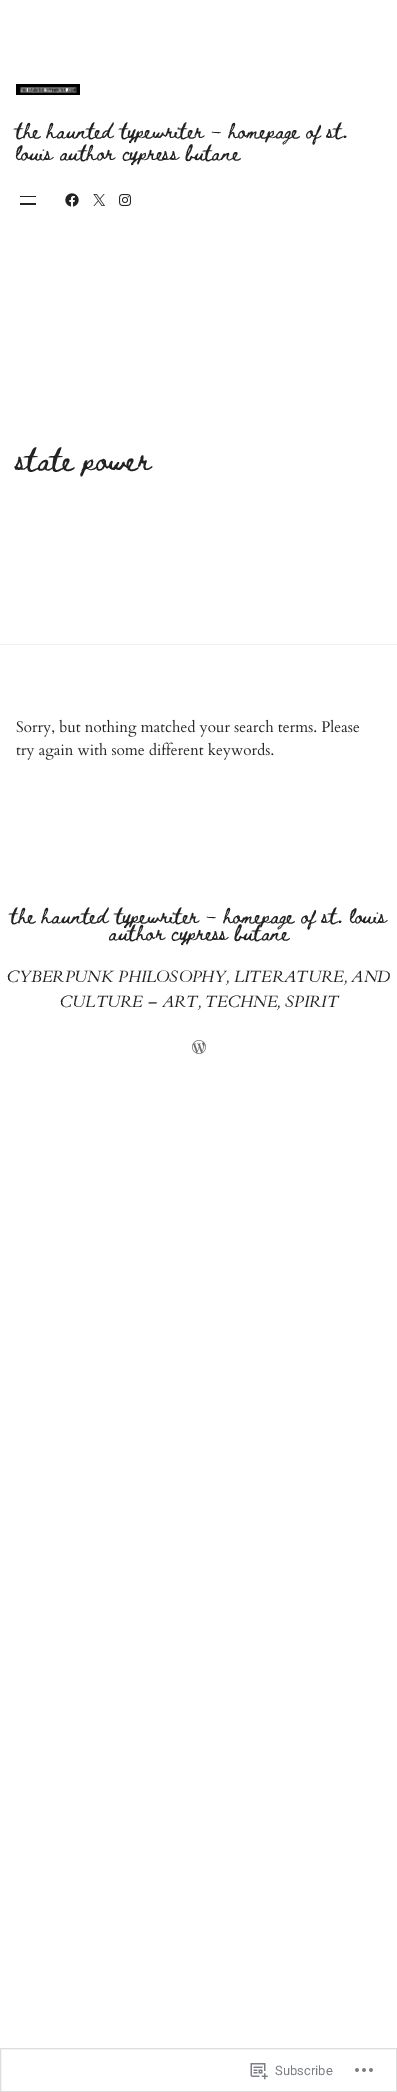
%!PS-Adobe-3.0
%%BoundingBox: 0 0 397 2092
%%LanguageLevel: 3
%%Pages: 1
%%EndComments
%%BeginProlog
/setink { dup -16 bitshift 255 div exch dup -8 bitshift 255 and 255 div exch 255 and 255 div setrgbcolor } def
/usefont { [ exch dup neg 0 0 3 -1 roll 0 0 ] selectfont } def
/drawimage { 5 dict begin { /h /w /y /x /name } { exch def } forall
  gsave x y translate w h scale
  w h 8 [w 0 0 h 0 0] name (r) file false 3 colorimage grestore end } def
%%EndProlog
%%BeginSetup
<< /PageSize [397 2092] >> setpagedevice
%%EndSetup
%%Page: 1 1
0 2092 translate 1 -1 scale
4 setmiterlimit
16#FFFFFF setink
0 0 397 2092 rectfill
(img1.raw) 16 84 64 11 drawimage
/BethEllen-Regular 15.3 usefont
16#242121 setink
16 138 moveto (the haunted typewriter – homepage of st.) show
16 160 moveto (louis author cypress butane) show
20 196 16 1 rectfill
20 203 16 2 rectfill
(img2.raw) 65 193 14 14 drawimage
(img3.raw) 93 194 12 12 drawimage
(img4.raw) 119 194 12 12 drawimage
/BethEllen-Regular 22.25 usefont
16 470 moveto (state power) show
16#F0F0F0 setink
0 644 397 1 rectfill
(img5.raw) 16 719 344 18 drawimage
(img6.raw) 16 742 258 18 drawimage
/BethEllen-Regular 15.3 usefont
16#242121 setink
11 923 moveto (the haunted typewriter – homepage of st. louis) show
109 940 moveto (author cypress butane) show
/Cardo-Italic 16.4 usefont
7 982 moveto (CYBERPUNK PHILOSOPHY, LITERATURE, AND) show
60 1007 moveto (CULTURE – ART, TECHNE, SPIRIT) show
(img7.raw) 192 1040 14 14 drawimage
16#DDDDDF setink
0.5 2048.5 396 43 rectstroke
(img8.raw) 250 2063 18 17 drawimage
/Roboto-Regular 13 usefont
16#7B7F85 setink
275 2075 moveto (Subscribe) show
(img9.raw) 355 2068 18 4 drawimage
showpage
%%EOF
